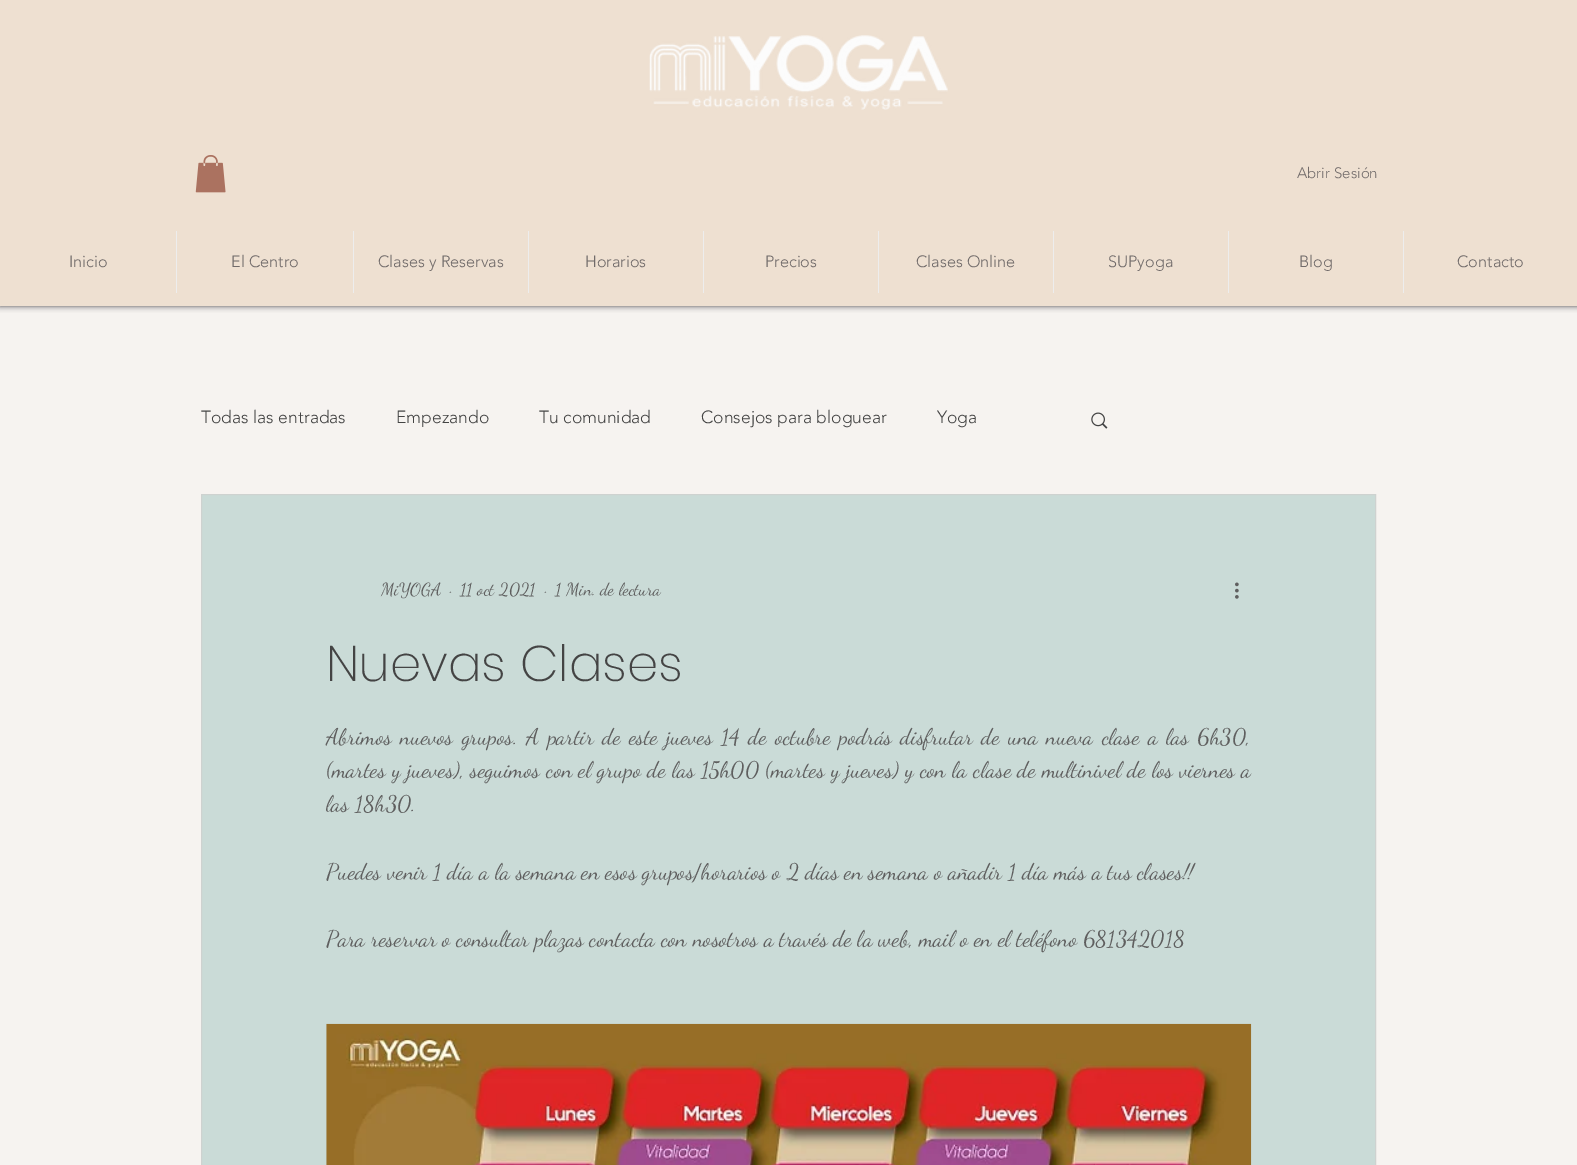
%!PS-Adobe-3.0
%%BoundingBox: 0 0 1577 1165
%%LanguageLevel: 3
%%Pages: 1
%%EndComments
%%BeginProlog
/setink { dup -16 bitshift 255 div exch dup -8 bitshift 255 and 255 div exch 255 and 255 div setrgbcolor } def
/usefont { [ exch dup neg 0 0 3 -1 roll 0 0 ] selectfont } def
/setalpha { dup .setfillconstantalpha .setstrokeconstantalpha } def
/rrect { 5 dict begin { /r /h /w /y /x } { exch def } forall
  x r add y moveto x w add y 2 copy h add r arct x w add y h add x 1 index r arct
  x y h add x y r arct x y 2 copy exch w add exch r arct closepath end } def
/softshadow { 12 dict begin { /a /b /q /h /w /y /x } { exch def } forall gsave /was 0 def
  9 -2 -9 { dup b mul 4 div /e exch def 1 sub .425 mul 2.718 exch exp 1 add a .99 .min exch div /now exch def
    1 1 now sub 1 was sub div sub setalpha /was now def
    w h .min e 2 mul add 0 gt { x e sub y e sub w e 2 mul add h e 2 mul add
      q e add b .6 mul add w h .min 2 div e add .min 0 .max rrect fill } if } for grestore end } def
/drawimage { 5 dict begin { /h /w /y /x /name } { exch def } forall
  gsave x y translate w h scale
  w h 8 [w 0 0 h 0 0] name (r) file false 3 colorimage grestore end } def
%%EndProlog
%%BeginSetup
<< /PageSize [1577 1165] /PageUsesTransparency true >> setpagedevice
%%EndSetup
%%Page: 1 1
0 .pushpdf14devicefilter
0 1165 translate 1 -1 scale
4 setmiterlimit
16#F6F3F0 setink
0 0 1577 1165 rectfill
16#000000 setink
0 0 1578 306 0 3 0.7 softshadow
16#EEE0D1 setink
0 0 1577 306 rectfill
(img1.raw) 649 35 299 75 drawimage
(img2.raw) 195 155 31 38 drawimage
/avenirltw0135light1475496-Light 15 usefont
16#716B6A setink
1297 178 moveto (Abrir Sesión) show
/avenirltw0135light1475496-Light 16.25 usefont
69 267 moveto (Inicio) show
16#EDEDED setink
176 231 1 62 rectfill
16#716B6A setink
231 267 moveto (El Centro) show
16#EDEDED setink
353 231 1 62 rectfill
16#716B6A setink
378 267 moveto (Clases y Reservas) show
16#EDEDED setink
528 231 1 62 rectfill
16#716B6A setink
585 267 moveto (Horarios) show
16#EDEDED setink
703 231 1 62 rectfill
16#716B6A setink
765 267 moveto (Precios) show
16#EDEDED setink
878 231 1 62 rectfill
16#716B6A setink
916 267 moveto (Clases Online) show
16#EDEDED setink
1053 231 1 62 rectfill
16#716B6A setink
1108 267 moveto (SUPyoga) show
16#EDEDED setink
1228 231 1 62 rectfill
16#716B6A setink
1299 267 moveto (Blog) show
16#EDEDED setink
1403 231 1 62 rectfill
16#716B6A setink
1457 267 moveto (Contacto) show
/avenirltw0135light1475496-Light 17.5 usefont
16#444444 setink
[
    [(Todas las entradas) 201 423]
    [(Empezando) 396 423]
    [(Tu comunidad) 539 423]
    [(Consejos para bloguear) 701 423]
    [(Yoga) 937 423]
] { aload pop moveto show } forall
(img3.raw) 1091 412 17 17 drawimage
16#CADBD7 setink
201.5 494.5 moveto 1375.5 494.5 lineto 1375.5 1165.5 lineto 201.5 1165.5 lineto closepath gsave fill grestore
16#CED2D0 setink
stroke
/DancingScript-Regular 17.5 usefont
16#5F5F5F setink
[
    [(MiYOGA) 381 595]
    [(·) 449 595]
    [(11 oct 2021) 460 595]
    [(·) 544 595]
    [(1 Min. de lectura) 555 595]
] { aload pop moveto show } forall
(img4.raw) 1235 582 4 17 drawimage
/Poppins-ExtraLight 50 usefont
16#444444 setink
326 681 moveto (Nuevas Clases) show
/DancingScript-Regular 22.5 usefont
16#5F5F5F setink
326 744 moveto 2.5 0 32 (Abrimos nuevos grupos. A partir de este jueves 14 de octubre podrás disfrutar de una nueva clase a las 6h30,) widthshow
326 777 moveto 0.4 0 32 (\(martes y jueves\), seguimos con el grupo de las 15h00 \(martes y jueves\) y con la clase de multinivel de los viernes a) widthshow
[
    [(las 18h30.) 326 811]
    [(Puedes venir 1 día a la semana en esos grupos/horarios o 2 días en semana o añadir 1 día más a tus clases!!) 326 879]
    [(Para reservar o consultar plazas contacta con nosotros a través de la web, mail o en el teléfono 681342018) 326 946]
] { aload pop moveto show } forall
(img5.raw) 326 1023 926 142 drawimage
.poppdf14devicefilter showpage
%%EOF
